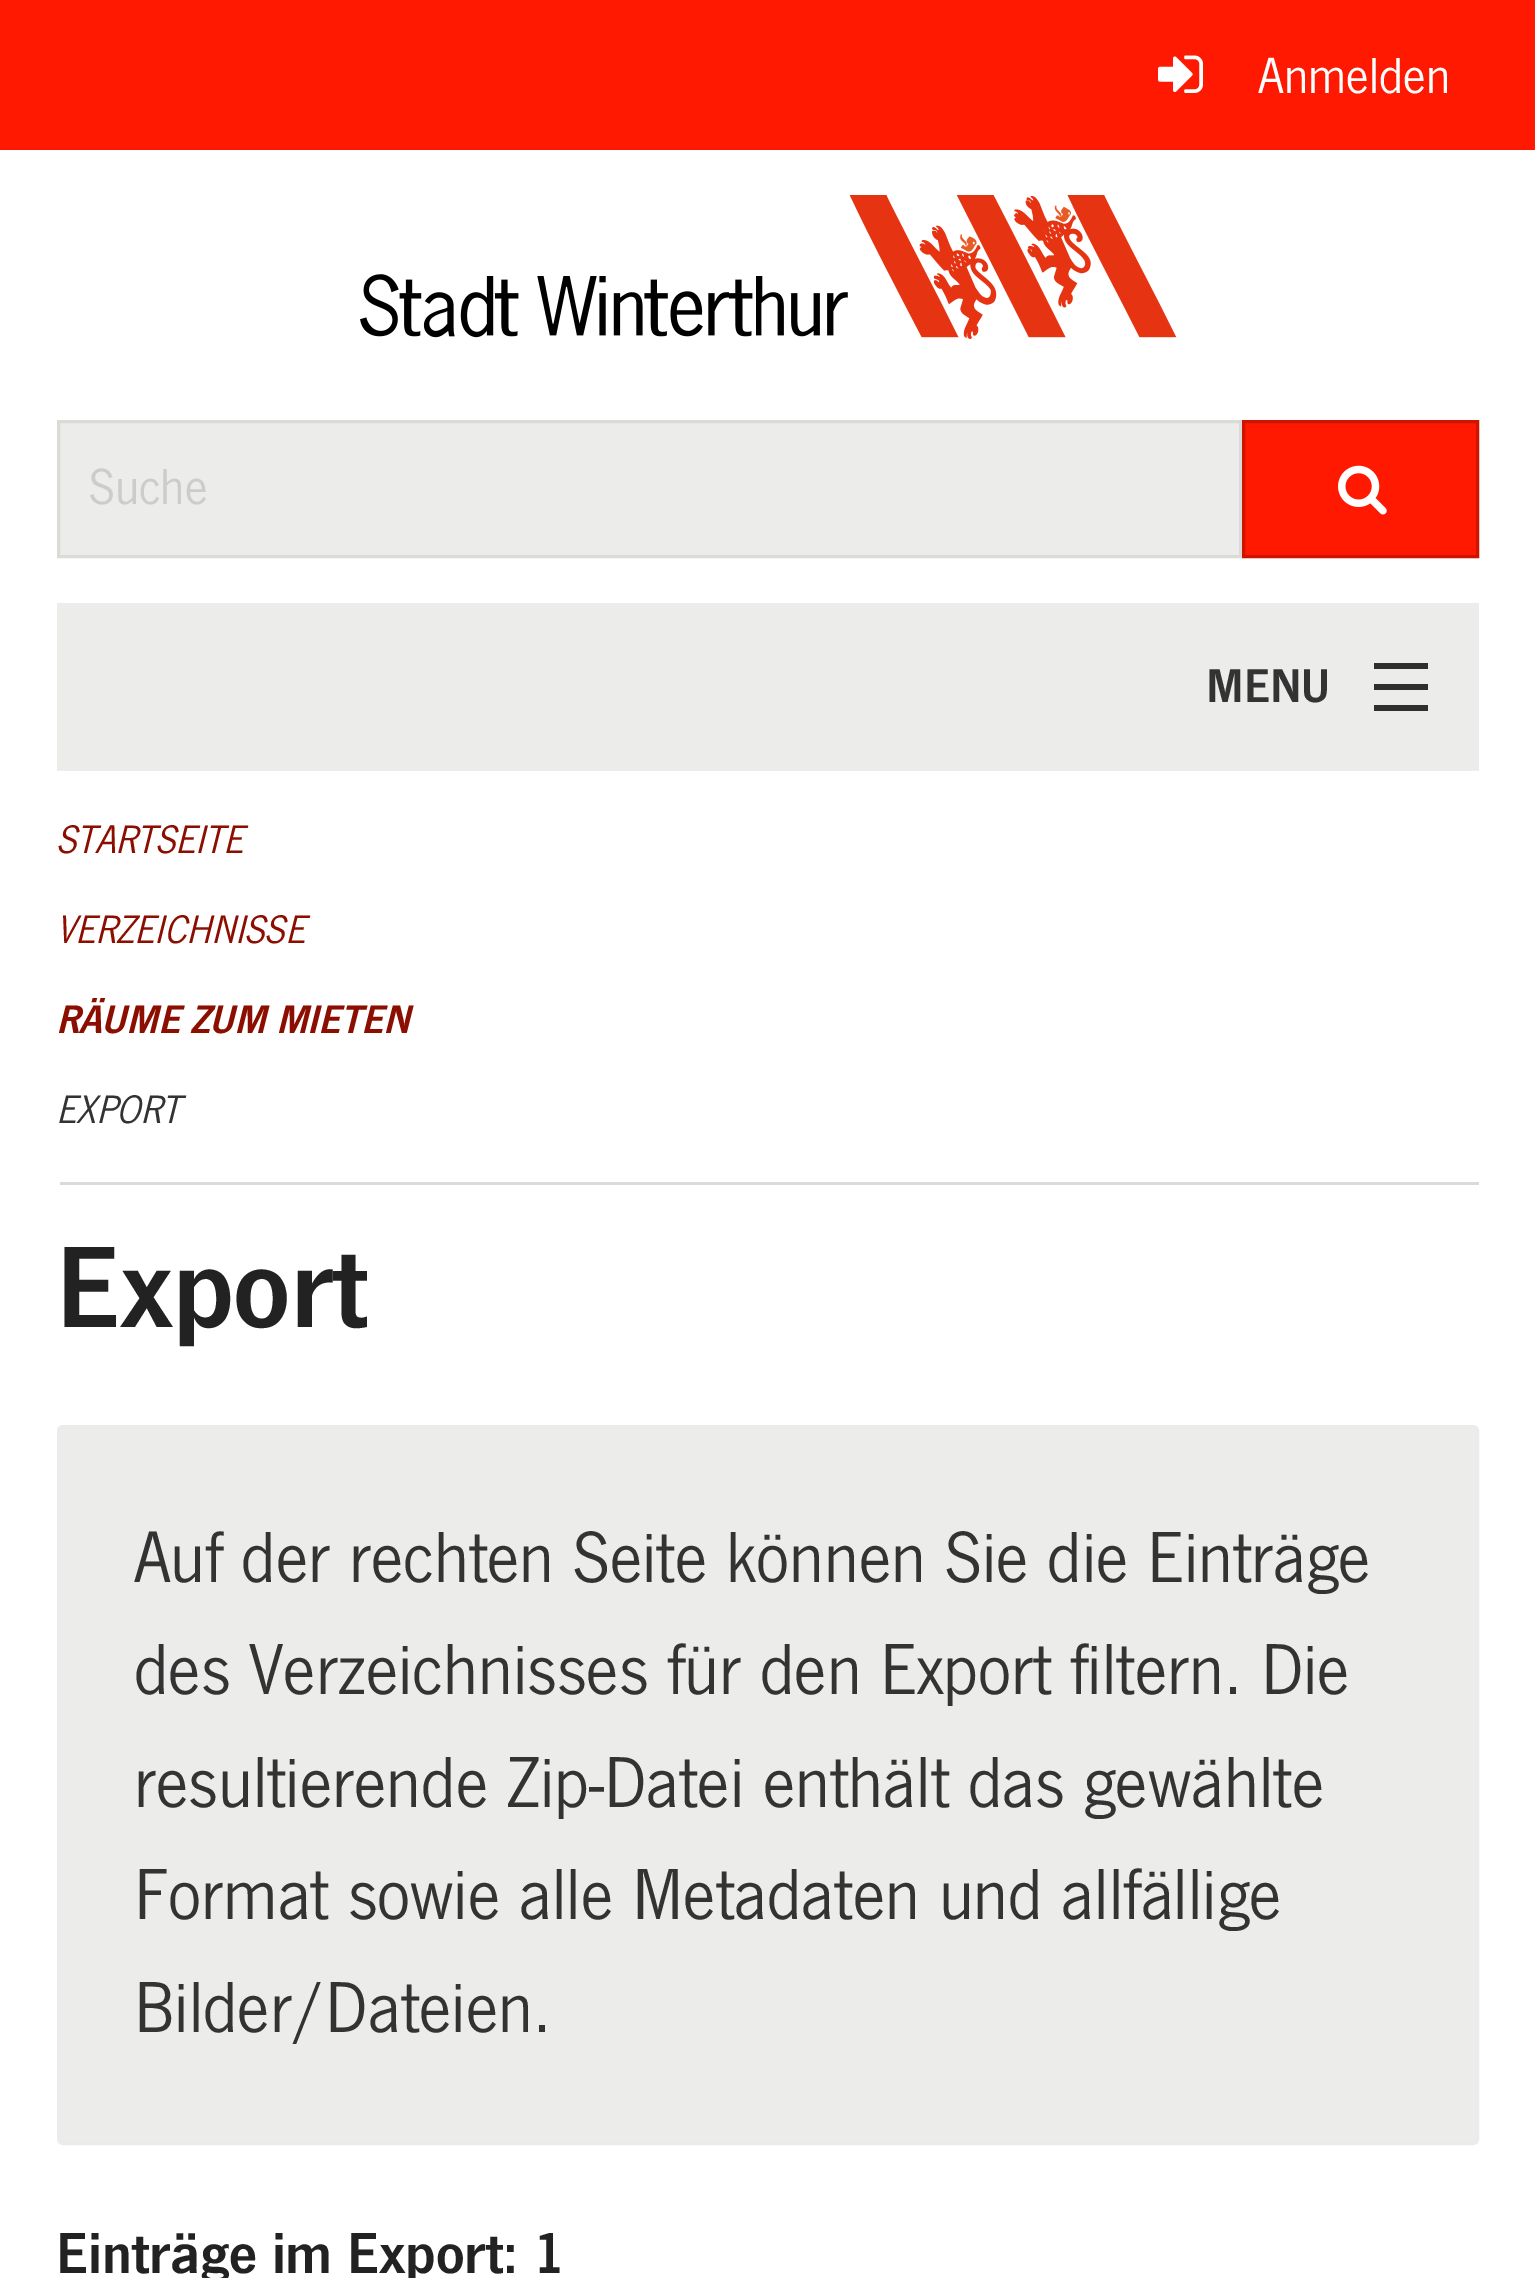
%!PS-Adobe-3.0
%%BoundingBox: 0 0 1535 2278
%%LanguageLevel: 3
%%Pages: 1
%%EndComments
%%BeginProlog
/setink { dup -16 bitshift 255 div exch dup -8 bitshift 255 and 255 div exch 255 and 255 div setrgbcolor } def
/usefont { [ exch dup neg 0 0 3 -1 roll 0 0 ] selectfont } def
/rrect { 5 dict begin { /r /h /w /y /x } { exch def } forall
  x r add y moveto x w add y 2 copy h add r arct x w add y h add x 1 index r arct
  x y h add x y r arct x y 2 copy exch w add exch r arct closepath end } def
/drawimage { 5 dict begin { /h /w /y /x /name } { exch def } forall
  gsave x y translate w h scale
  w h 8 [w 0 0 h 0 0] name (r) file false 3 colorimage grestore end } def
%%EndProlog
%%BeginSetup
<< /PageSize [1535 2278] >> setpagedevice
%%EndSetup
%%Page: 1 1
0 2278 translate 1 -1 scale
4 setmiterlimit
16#FFFFFF setink
0 0 1535 2278 rectfill
16#FF1900 setink
0 0 1535 150 rectfill
(img1.raw) 1158 55 45 38 drawimage
/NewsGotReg-Regular 52.5 usefont
16#FFFFFF setink
1258 93 moveto (Anmelden) show
(img2.raw) 360 195 817 144 drawimage
16#ECECEA setink
58.5 421.5 moveto 1240.5 421.5 lineto 1240.5 556.5 lineto 58.5 556.5 lineto closepath gsave fill grestore
16#DADAD6 setink
3 setlinewidth
stroke
16#CCCCCC setink
89 504 moveto (Suche) show
16#FF1900 setink
1243.5 421.5 moveto 1477.5 421.5 lineto 1477.5 556.5 lineto 1243.5 556.5 lineto closepath gsave fill grestore
16#CC1400 setink
stroke
(img3.raw) 1338 465 49 50 drawimage
16#ECECEA setink
57 603 1422 168 rectfill
/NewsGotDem-Regular 49 usefont
16#333333 setink
1206 702 moveto (MENU) show
[
    [1374 705 54 6 16#312F2E]
    [1374 684 54 6 16#312F2E]
    [1374 663 54 6 16#312F2E]
    [60 1182 1419 3 16#DADAD6]
] { aload pop setink rectfill } forall
/NewsGotReg-Italic 41.25 usefont
16#8C0E00 setink
56 853 moveto (STARTSEITE) show
56 943 moveto (VERZEICHNISSE) show
/NewsGotDem-Italic 41.25 usefont
56 1033 moveto (RÄUME ZUM MIETEN) show
/NewsGotReg-Italic 41.25 usefont
16#333333 setink
56 1123 moveto (EXPORT) show
/NewsGotDem-Regular 120 usefont
16#222222 setink
56 1327 moveto (Export) show
16#ECECEA setink
58.5 1426.5 1419 717 4.5 rrect gsave fill grestore
16#EAECEC setink
stroke
/NewsGotReg-Regular 75 usefont
16#333333 setink
[
    [(Auf der rechten Seite können Sie die Einträge) 134 1582]
    [(des Verzeichnisses für den Export filtern. Die) 134 1694]
    [(resultierende Zip-Datei enthält das gewählte) 134 1807]
    [(Format sowie alle Metadaten und allfällige) 134 1919]
    [(Bilder/Dateien.) 134 2032]
] { aload pop moveto show } forall
/NewsGotDem-Regular 60 usefont
16#222222 setink
56 2273 moveto (Einträge im Export: 1) show
showpage
%%EOF
